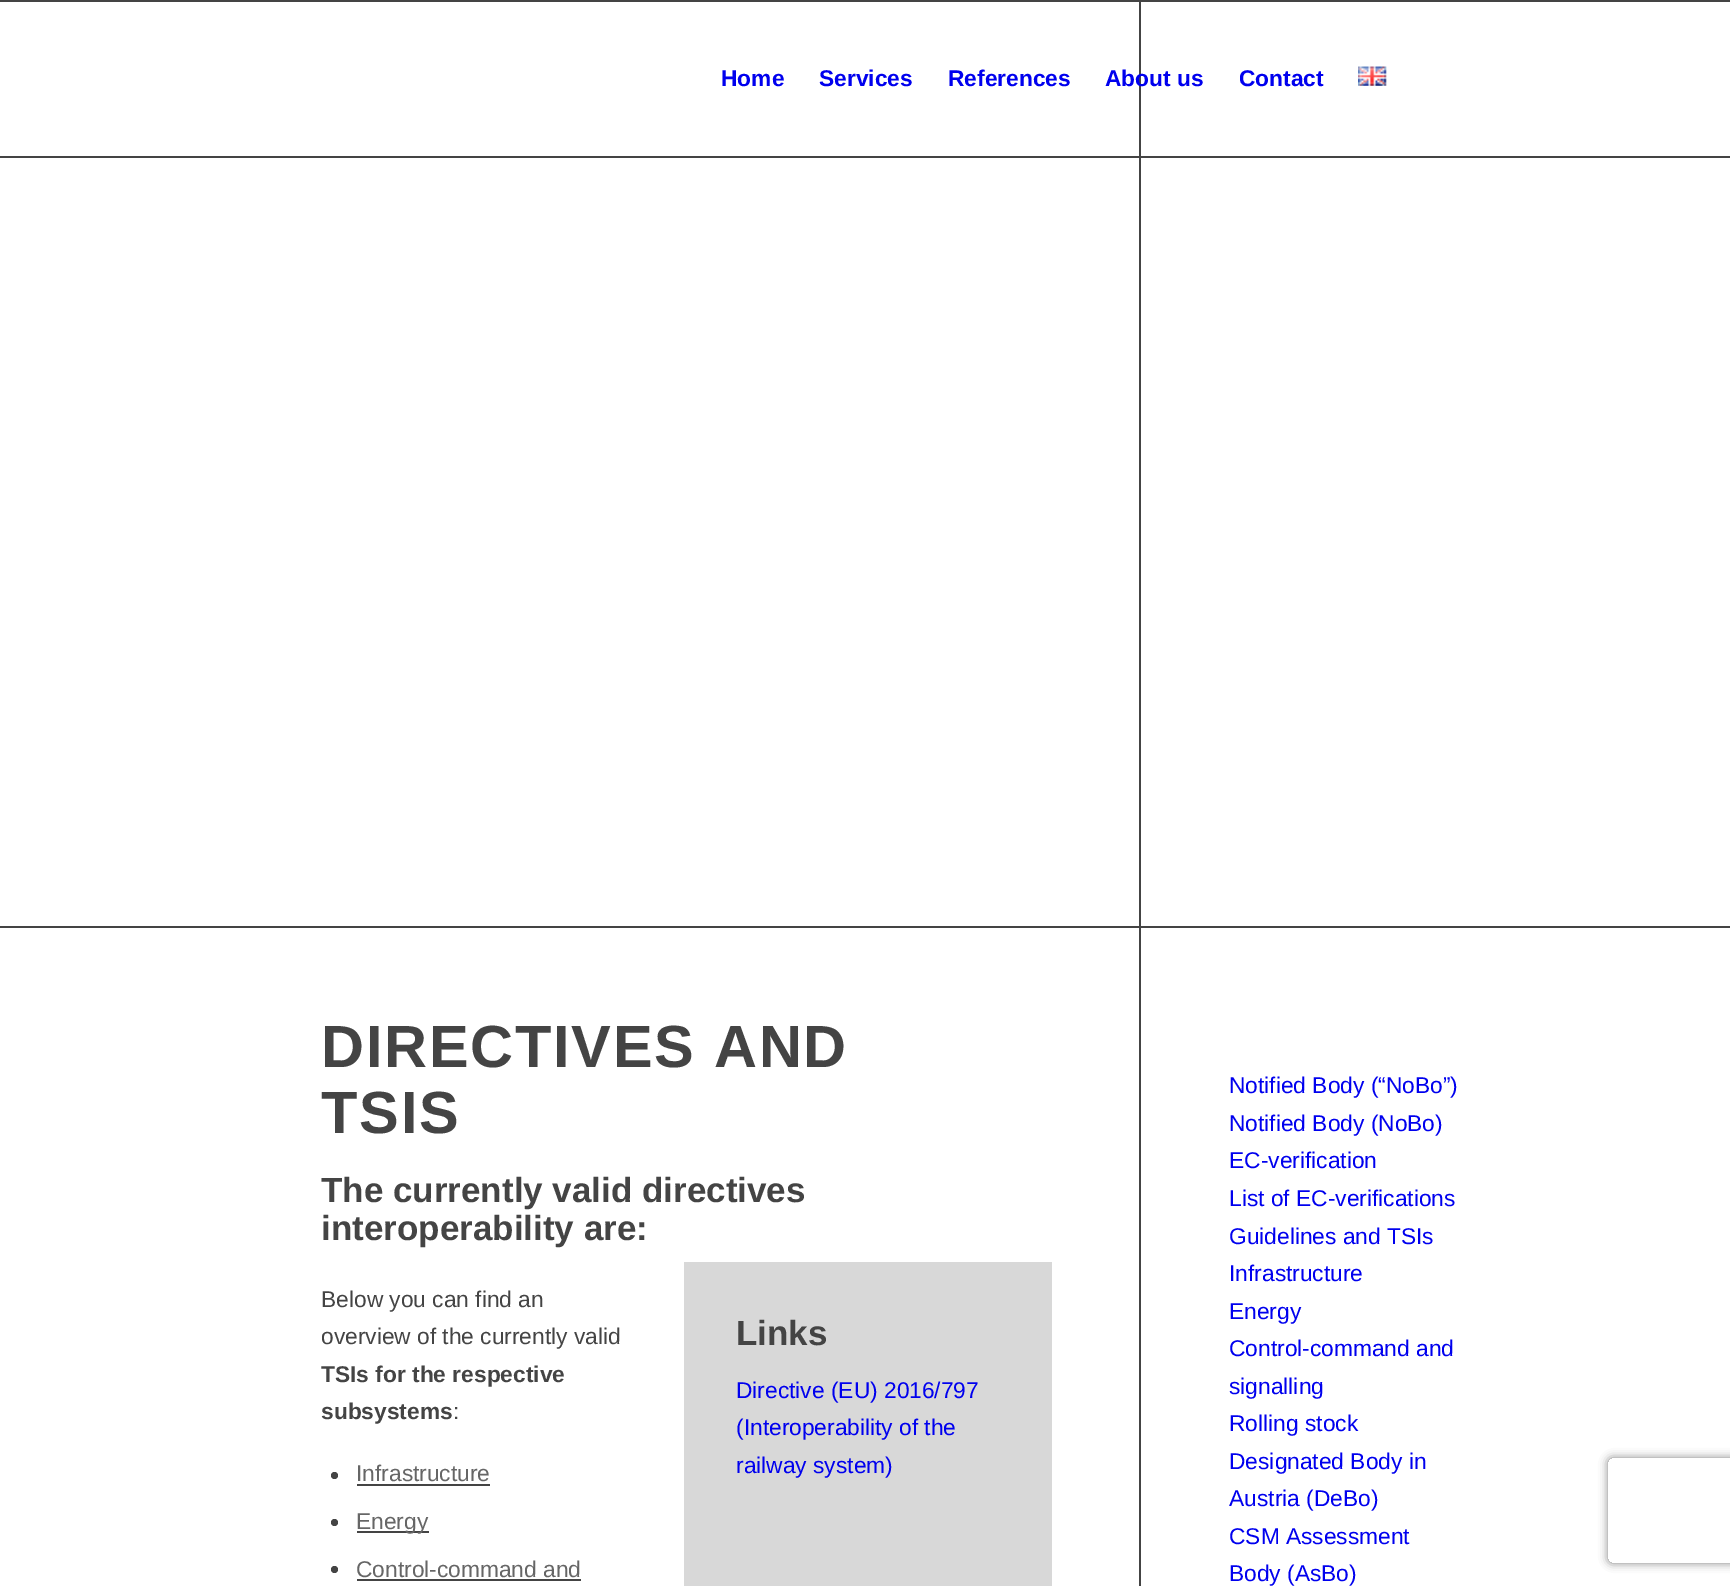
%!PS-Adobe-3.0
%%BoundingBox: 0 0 1730 1586
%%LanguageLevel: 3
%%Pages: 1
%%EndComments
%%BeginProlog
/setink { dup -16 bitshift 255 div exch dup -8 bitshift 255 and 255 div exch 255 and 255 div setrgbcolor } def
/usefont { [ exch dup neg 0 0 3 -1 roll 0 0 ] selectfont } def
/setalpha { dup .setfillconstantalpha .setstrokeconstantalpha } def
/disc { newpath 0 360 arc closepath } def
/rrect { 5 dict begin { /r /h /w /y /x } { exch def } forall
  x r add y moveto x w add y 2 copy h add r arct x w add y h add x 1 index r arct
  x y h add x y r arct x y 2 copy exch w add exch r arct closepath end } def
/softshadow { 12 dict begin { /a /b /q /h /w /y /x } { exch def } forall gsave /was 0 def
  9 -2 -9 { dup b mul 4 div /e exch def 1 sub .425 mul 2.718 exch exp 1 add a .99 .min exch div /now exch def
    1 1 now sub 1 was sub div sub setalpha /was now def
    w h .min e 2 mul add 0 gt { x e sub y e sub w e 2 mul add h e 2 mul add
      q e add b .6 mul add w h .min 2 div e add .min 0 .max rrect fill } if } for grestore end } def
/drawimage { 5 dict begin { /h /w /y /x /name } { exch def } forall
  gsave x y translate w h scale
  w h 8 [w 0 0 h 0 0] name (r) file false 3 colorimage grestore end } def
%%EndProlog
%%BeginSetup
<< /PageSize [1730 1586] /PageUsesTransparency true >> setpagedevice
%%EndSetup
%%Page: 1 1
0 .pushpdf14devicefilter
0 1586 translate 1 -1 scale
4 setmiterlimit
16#FFFFFF setink
0 0 1730 1586 rectfill
[
    [1139 0 2 926 16#444444]
    [0 0 1730 2 16#444444]
    [0 156 1730 2 16#444444]
] { aload pop setink rectfill } forall
/LiberationSans-Bold 22.75 usefont
16#0000EE setink
[
    [(Home) 721 86]
    [(Services) 819 86]
    [(References) 948 86]
    [(About us) 1105 86]
    [(Contact) 1239 86]
] { aload pop moveto show } forall
(img1.raw) 1358 66 29 20 drawimage
16#444444 setink
0 926 1730 2 rectfill
1139 928 2 658 rectfill
/LiberationSans-Bold 59.5 usefont
321 1067 moveto 1.75 0 (DIRECTIVES AND) ashow
321 1133 moveto 1.75 0 (TSIS) ashow
/LiberationSans-Bold 35 usefont
321 1202 moveto (The currently valid directives) show
321 1240 moveto (interoperability are:) show
/LiberationSans-Regular 22.75 usefont
321 1307 moveto (Below you can find an) show
321 1344 moveto (overview of the currently valid) show
/LiberationSans-Bold 22.75 usefont
321 1382 moveto (TSIs for the respective) show
321 1419 moveto (subsystems) show
/LiberationSans-Regular 22.75 usefont
453 1419 moveto (:) show
334.5 1475.5 3.5 disc fill
16#666666 setink
356 1481 moveto (Infrastructure) show
16#444444 setink
357 1484 133 2 rectfill
334.5 1522.5 3.5 disc fill
357 1531 72 2 rectfill
16#666666 setink
356 1529 moveto (Energy) show
16#444444 setink
334.5 1569.5 3.5 disc fill
16#666666 setink
356 1577 moveto (Control-command and) show
16#444444 setink
357 1579 224 2 rectfill
16#D8D8D8 setink
684 1262 368 324 rectfill
/LiberationSans-Bold 35 usefont
16#444444 setink
736 1345 moveto (Links) show
/LiberationSans-Regular 22.75 usefont
16#0000EE setink
[
    [(Directive \(EU\) 2016/797) 736 1398]
    [(\(Interoperability of the) 736 1435]
    [(railway system\)) 736 1473]
    [(Notified Body \(“NoBo”\)) 1229 1093]
    [(Notified Body \(NoBo\)) 1229 1131]
    [(EC-verification) 1229 1168]
    [(List of EC-verifications) 1229 1206]
    [(Guidelines and TSIs) 1229 1244]
    [(Infrastructure) 1229 1281]
    [(Energy) 1229 1319]
    [(Control-command and) 1229 1356]
    [(signalling) 1229 1394]
    [(Rolling stock) 1229 1431]
    [(Designated Body in) 1229 1469]
    [(Austria \(DeBo\)) 1229 1506]
    [(CSM Assessment) 1229 1544]
    [(Body \(AsBo\)) 1229 1581]
] { aload pop moveto show } forall
gsave
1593 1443 moveto 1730 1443 lineto 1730 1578 lineto 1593 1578 lineto closepath 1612 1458 moveto 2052 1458 lineto 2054 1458 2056 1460 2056 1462 curveto 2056 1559 lineto 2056 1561 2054 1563 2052 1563 curveto 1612 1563 lineto 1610 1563 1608 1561 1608 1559 curveto 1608 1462 lineto 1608 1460 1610 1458 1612 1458 curveto closepath eoclip newpath
16#808080 setink
1608 1458 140 105 4 4.5 1 softshadow
grestore
.poppdf14devicefilter showpage
%%EOF
